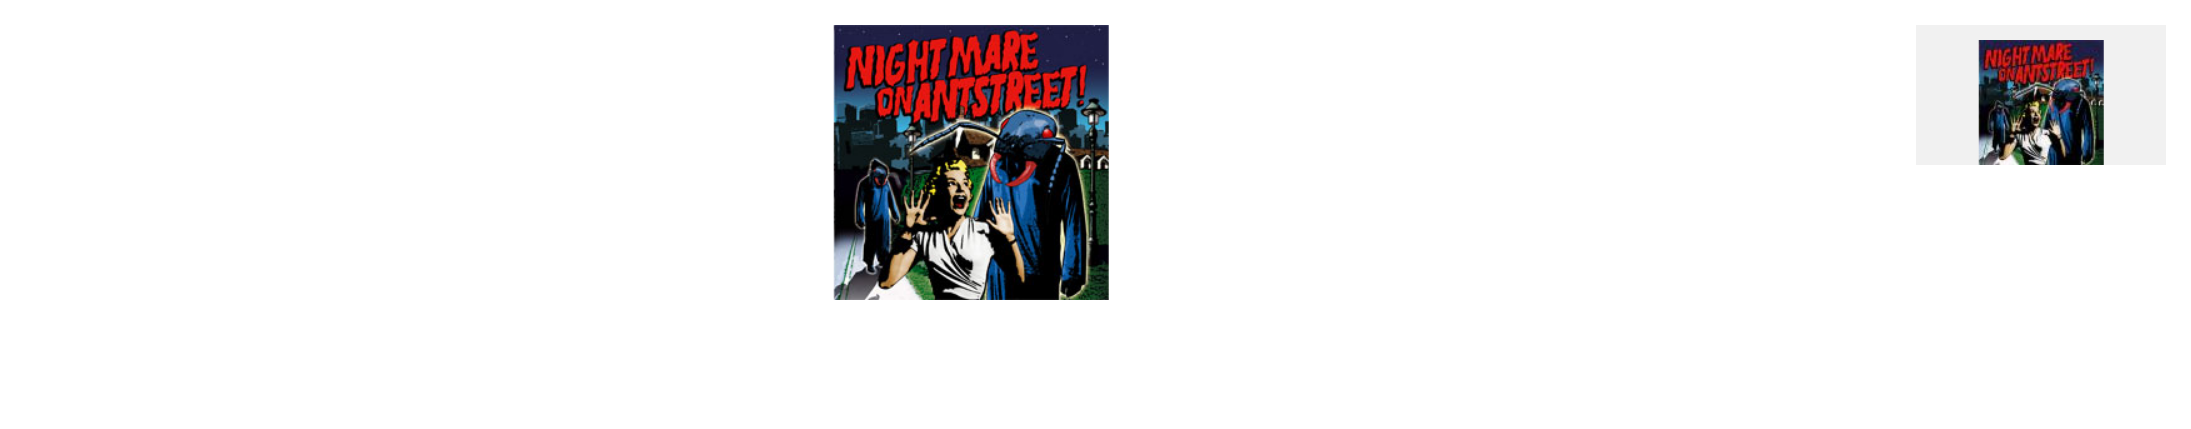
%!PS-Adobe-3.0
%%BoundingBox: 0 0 2191 429
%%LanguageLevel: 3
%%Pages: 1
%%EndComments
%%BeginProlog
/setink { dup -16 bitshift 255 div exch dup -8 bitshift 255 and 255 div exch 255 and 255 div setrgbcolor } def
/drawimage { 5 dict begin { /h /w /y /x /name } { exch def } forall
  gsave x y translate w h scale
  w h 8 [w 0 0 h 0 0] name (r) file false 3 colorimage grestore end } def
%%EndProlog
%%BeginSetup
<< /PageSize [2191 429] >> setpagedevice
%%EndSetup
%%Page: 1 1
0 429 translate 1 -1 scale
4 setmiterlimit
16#FFFFFF setink
0 0 2191 429 rectfill
(img1.raw) 833 25 276 275 drawimage
16#F1F1F1 setink
1916 25 250 140 rectfill
(img2.raw) 1978 40 126 125 drawimage
showpage
%%EOF
